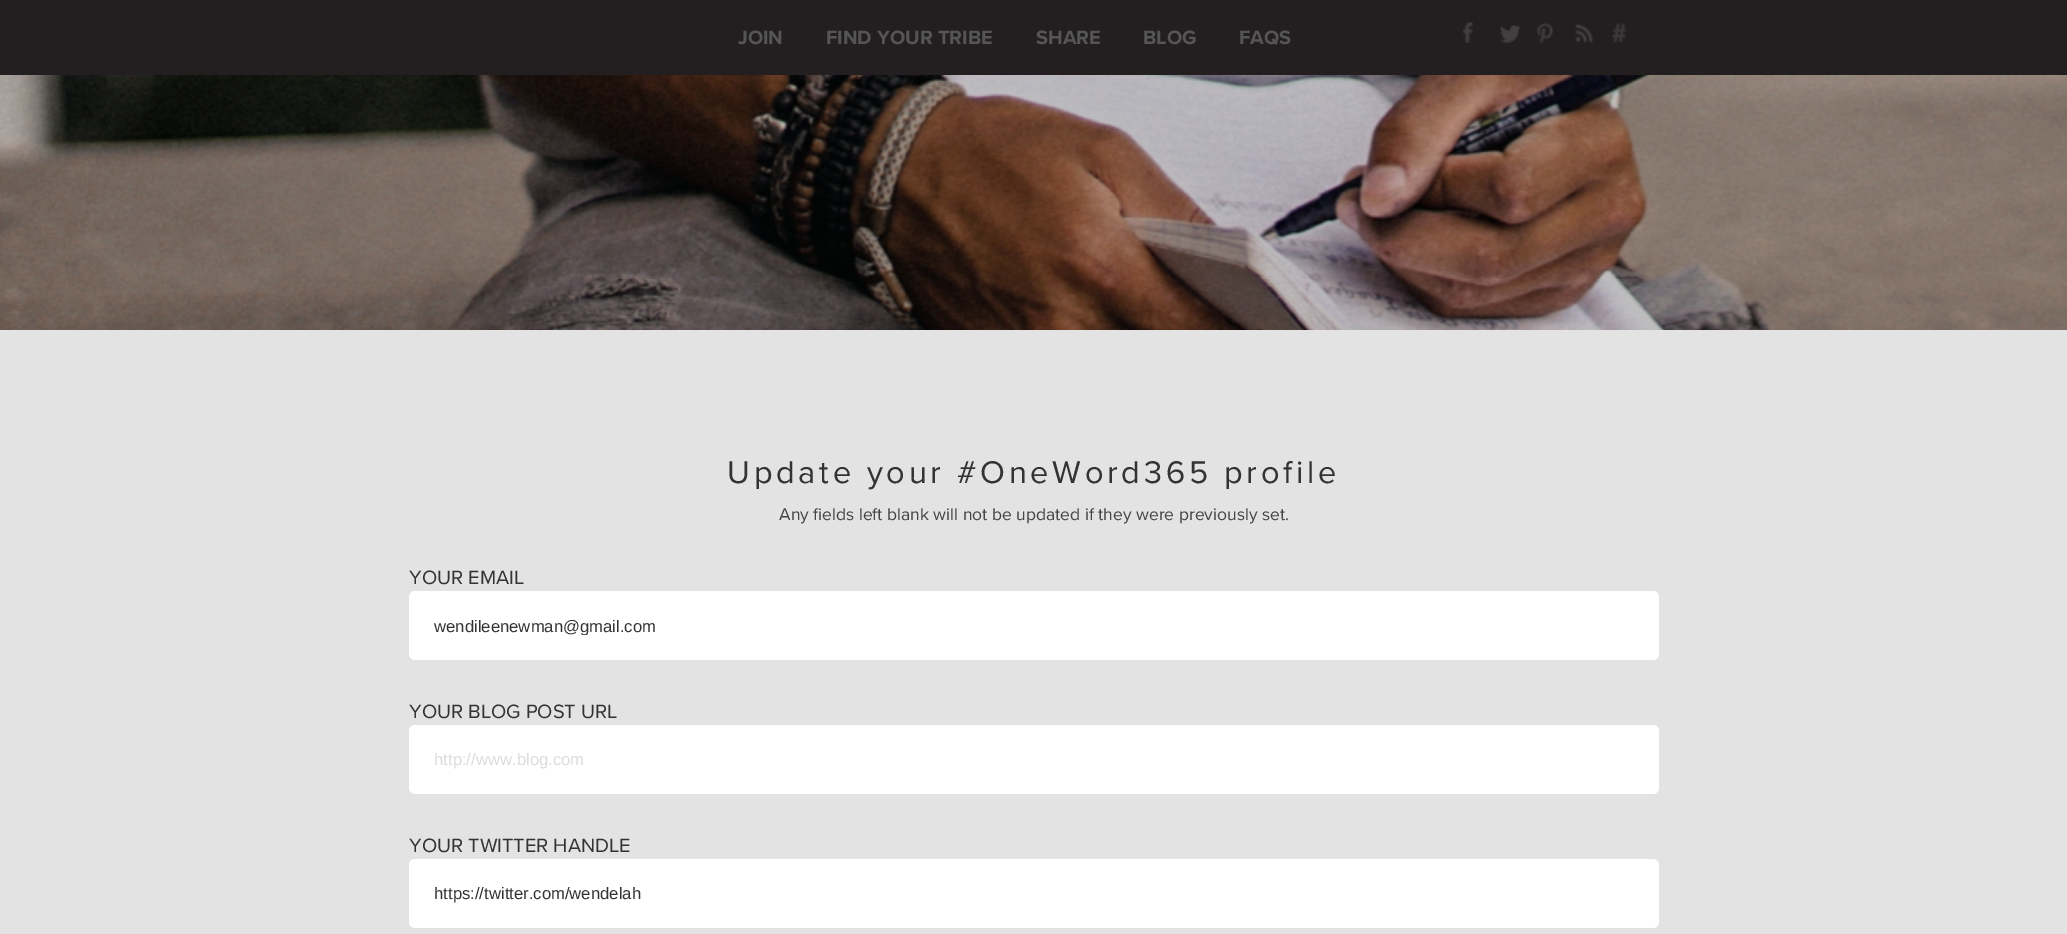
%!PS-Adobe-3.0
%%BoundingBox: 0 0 2067 934
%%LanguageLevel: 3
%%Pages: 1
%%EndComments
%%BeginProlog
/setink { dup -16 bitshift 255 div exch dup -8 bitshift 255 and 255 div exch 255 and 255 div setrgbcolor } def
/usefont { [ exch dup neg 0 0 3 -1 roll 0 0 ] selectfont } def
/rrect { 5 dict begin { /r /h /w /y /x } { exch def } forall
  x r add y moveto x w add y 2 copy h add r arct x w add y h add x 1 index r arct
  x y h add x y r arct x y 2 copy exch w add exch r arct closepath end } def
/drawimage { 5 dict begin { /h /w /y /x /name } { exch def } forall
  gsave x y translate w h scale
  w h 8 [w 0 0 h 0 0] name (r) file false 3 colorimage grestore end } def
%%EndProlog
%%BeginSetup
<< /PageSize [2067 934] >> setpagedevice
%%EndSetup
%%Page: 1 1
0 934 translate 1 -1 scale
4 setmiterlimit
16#FFFFFF setink
0 0 2067 934 rectfill
16#231F20 setink
0 0 2067 75 rectfill
/ProximaNova-Bold 20 usefont
16#555555 setink
[
    [(JOIN) 738 44]
    [(FIND YOUR TRIBE) 826 44]
    [(SHARE) 1036 44]
    [(BLOG) 1143 44]
    [(FAQS) 1239 44]
] { aload pop moveto show } forall
(img1.raw) 1462 22 11 21 drawimage
(img2.raw) 1500 25 20 18 drawimage
(img3.raw) 1537 23 16 21 drawimage
(img4.raw) 1575 24 18 19 drawimage
(img5.raw) 1612 23 15 20 drawimage
(img6.raw) 0 75 2067 255 drawimage
16#E3E3E3 setink
0 330 2067 604 rectfill
/ProximaNova-Regular 32.5 usefont
16#333333 setink
727 483 moveto 3.75 0 (Update your #OneWord365 profile) ashow
/ProximaNova-Regular 17.5 usefont
16#454545 setink
779 520 moveto (Any fields left blank will not be updated if they were previously set.) show
/ProximaNova-Regular 20 usefont
16#333333 setink
409 584 moveto (YOUR EMAIL) show
16#FFFFFF setink
409 591 1250 69 6 rrect fill
gsave
434 616 1200 19 rectclip
/LiberationSans-Regular 16.7 usefont
16#333333 setink
434 632 moveto (wendileenewman@gmail.com) show
grestore
16#333333 setink
409 718 moveto (YOUR BLOG POST URL) show
16#FFFFFF setink
409 725 1250 69 6 rrect fill
/LiberationSans-Regular 16.7 usefont
16#DCDCDC setink
434 765 moveto (http://www.blog.com) show
/ProximaNova-Regular 20 usefont
16#333333 setink
409 852 moveto (YOUR TWITTER HANDLE) show
16#FFFFFF setink
409 859 1250 69 6 rrect fill
/LiberationSans-Regular 16.7 usefont
16#333333 setink
434 899 moveto (https://twitter.com/wendelah) show
showpage
%%EOF
